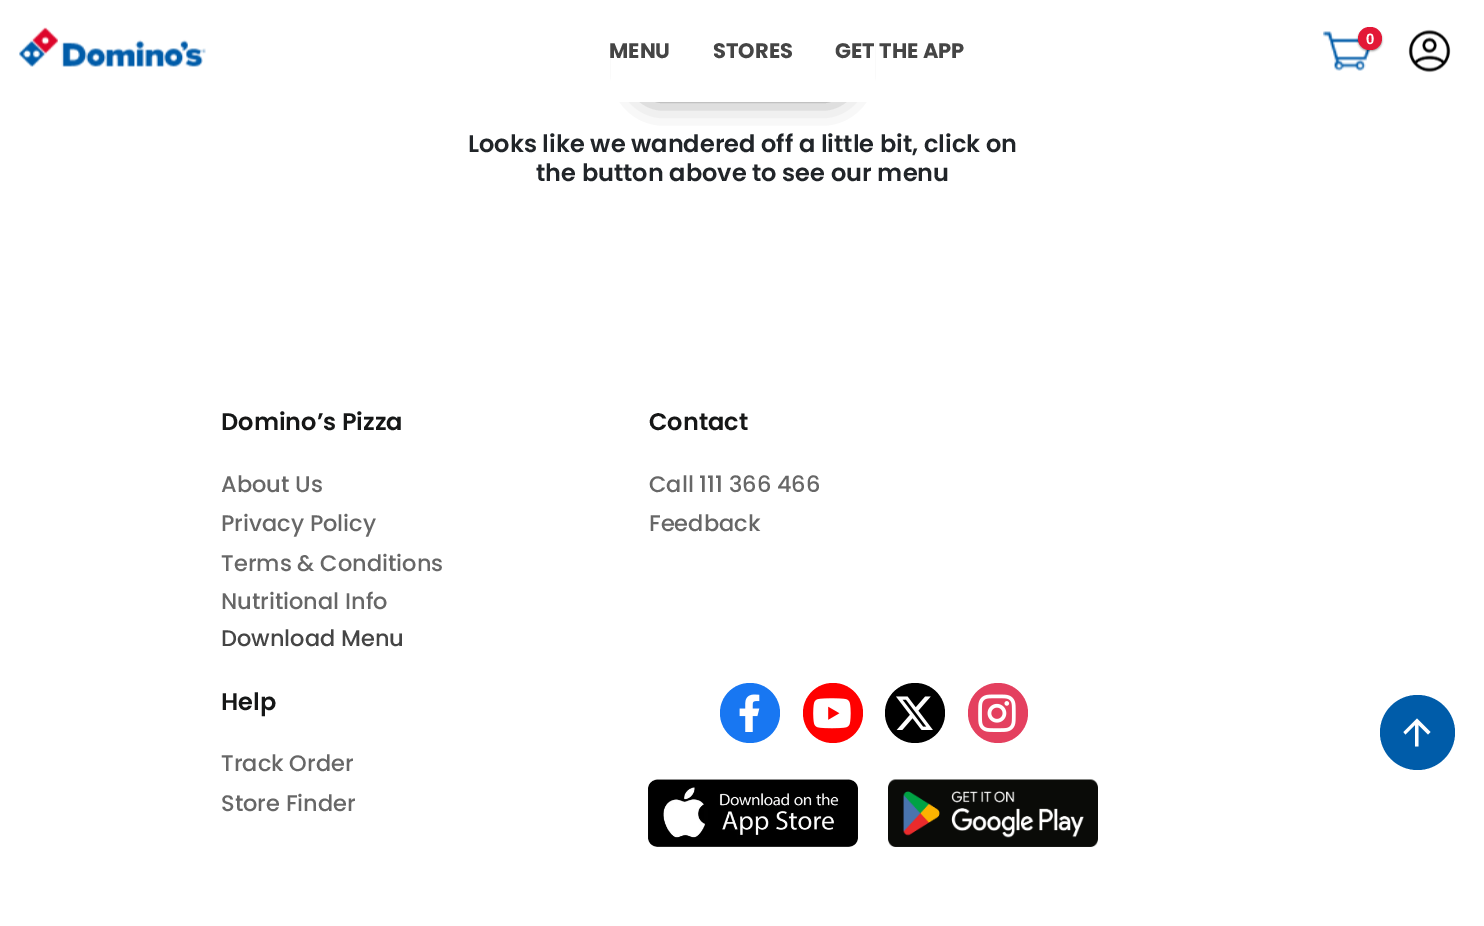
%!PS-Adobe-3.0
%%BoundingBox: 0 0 1484 926
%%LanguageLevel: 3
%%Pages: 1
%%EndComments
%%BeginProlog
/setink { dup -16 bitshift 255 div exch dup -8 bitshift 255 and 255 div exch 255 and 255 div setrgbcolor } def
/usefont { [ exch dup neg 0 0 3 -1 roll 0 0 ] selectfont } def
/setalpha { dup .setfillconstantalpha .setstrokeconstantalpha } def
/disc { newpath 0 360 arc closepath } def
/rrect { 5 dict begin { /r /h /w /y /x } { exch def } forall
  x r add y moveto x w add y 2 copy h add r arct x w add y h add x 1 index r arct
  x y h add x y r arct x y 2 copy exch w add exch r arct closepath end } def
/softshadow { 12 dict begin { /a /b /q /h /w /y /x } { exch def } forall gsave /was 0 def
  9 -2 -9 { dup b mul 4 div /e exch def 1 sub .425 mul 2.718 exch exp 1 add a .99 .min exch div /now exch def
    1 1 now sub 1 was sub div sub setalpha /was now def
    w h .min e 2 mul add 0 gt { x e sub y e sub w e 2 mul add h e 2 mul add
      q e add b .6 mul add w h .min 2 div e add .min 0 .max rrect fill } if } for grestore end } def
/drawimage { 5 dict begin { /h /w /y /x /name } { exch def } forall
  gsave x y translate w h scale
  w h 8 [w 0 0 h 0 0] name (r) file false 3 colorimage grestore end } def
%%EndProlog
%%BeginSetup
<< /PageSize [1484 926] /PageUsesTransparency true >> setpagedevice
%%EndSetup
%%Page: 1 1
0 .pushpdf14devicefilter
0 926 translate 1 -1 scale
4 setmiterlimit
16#FFFFFF setink
0 0 1484 926 rectfill
16#000000 setink
644 29 198 63 11 15 0.8 softshadow
16#FFFFFF setink
611 0 264 102 rectfill
(img1.raw) 19 27 187 40 drawimage
(img2.raw) 1323 31 48 40 drawimage
16#000000 setink
1358 29 24 22 11 1 0.4 softshadow
16#E31837 setink
1358 27 24 23 11.5 rrect fill
/LiberationSans-Bold 15 usefont
16#FFFFFF setink
1366 44 moveto (0) show
(img3.raw) 1408 29 43 44 drawimage
/Poppins-Bold 21 usefont
16#454545 setink
[
    [(MENU) 609 58]
    [(STORES) 713 58]
    [(GET THE APP) 835 58]
] { aload pop moveto show } forall
/Poppins-SemiBold 24 usefont
16#212529 setink
468 152 moveto (Looks like we wandered off a little bit, click on) show
536 181 moveto (the button above to see our menu) show
16#161717 setink
221 430 moveto (Domino’s Pizza) show
/Poppins-Medium 22.5 usefont
16#676767 setink
[
    [(About Us) 221 492]
    [(Privacy Policy) 221 531]
    [(Terms & Conditions) 221 571]
    [(Nutritional Info) 221 609]
] { aload pop moveto show } forall
16#454545 setink
221 646 moveto (Download Menu) show
/Poppins-SemiBold 24 usefont
16#161717 setink
649 430 moveto (Contact) show
/Poppins-Medium 22.5 usefont
16#676767 setink
649 492 moveto (Call 111 366 466) show
649 531 moveto (Feedback) show
/Poppins-SemiBold 24 usefont
16#161717 setink
221 710 moveto (Help) show
/Poppins-Medium 22.5 usefont
16#676767 setink
221 771 moveto (Track Order) show
221 811 moveto (Store Finder) show
16#1877F2 setink
750 713 30 disc fill
(img4.raw) 739 694 21 38 drawimage
16#FF0000 setink
833 713 30 disc fill
(img5.raw) 813 698 38 31 drawimage
16#000000 setink
915 713 30 disc fill
(img6.raw) 896 696 37 34 drawimage
16#E4405F setink
998 713 30 disc fill
(img7.raw) 978 694 38 38 drawimage
(img8.raw) 648 779 210 68 drawimage
(img9.raw) 888 779 210 68 drawimage
16#005CA9 setink
1417.5 732.5 37.5 disc fill
16#FFFFFF setink
1418.5 725 moveto 1418.5 746.5 lineto 1415 746.5 lineto 1415 725 lineto 1405.5 734.5 lineto 1403.5 732 lineto 1417 718.5 lineto 1430.5 732 lineto 1428 734.5 lineto closepath fill
.poppdf14devicefilter showpage
%%EOF
